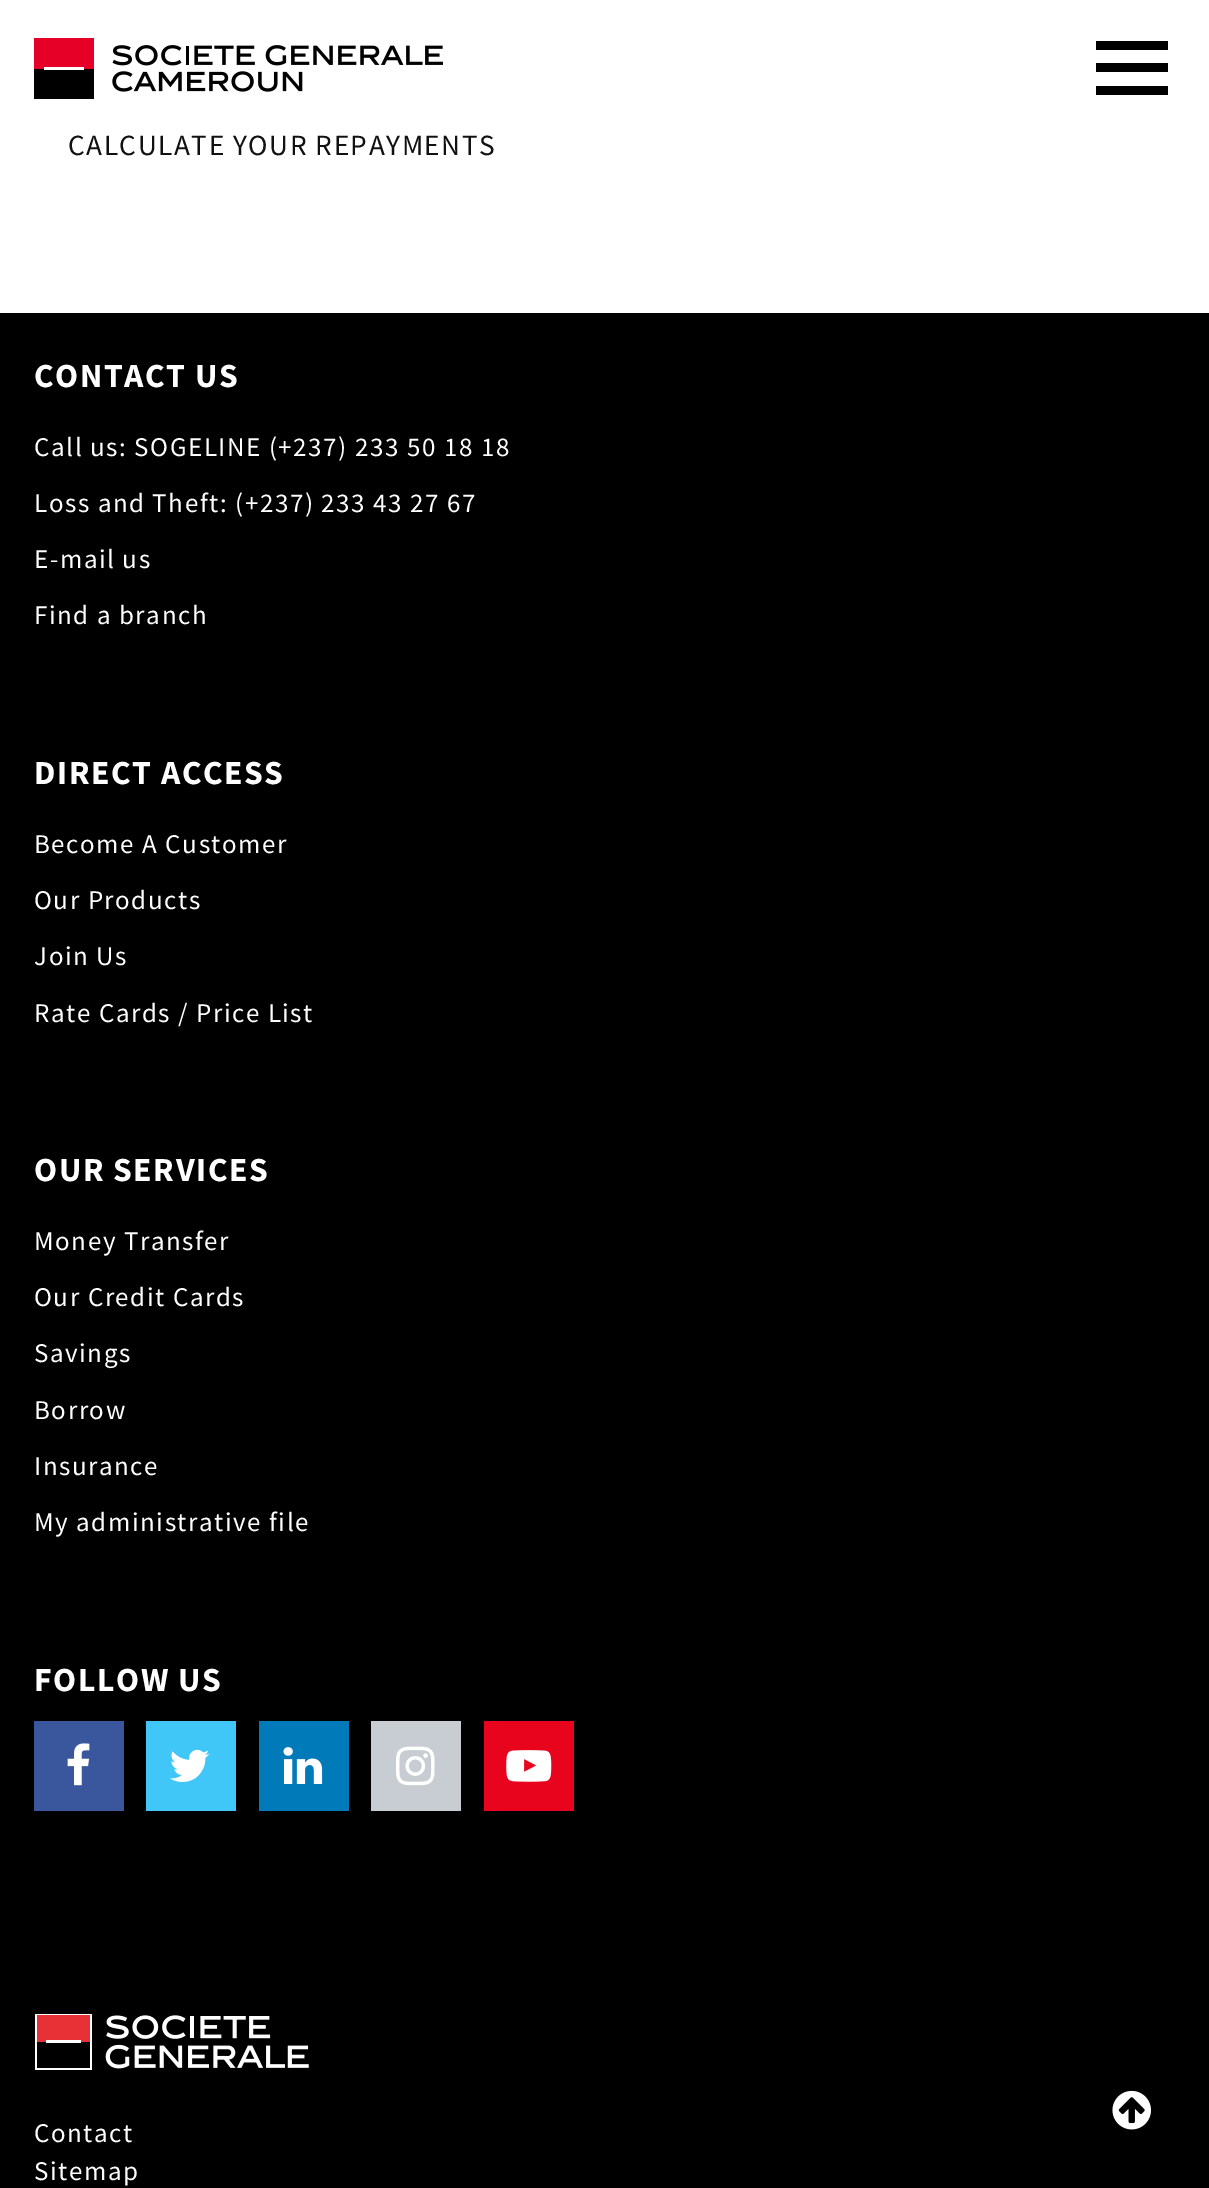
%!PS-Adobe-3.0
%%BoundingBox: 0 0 1209 2188
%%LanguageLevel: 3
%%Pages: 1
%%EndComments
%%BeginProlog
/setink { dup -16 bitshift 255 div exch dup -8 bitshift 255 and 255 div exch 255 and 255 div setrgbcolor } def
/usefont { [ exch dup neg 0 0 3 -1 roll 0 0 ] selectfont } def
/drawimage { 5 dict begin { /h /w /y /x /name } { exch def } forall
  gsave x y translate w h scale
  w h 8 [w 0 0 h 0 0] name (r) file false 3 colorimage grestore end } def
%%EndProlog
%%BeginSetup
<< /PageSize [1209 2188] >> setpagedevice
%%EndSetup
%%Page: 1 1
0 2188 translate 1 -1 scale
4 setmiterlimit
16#FFFFFF setink
0 0 1209 2188 rectfill
(img1.raw) 34 38 409 61 drawimage
[
    [1096 63 72 9 16#000000]
    [1096 41 72 9 16#000000]
    [1096 86 72 9 16#000000]
] { aload pop setink rectfill } forall
/SourceSansPro-Regular 29.25 usefont
16#111111 setink
68 155 moveto 1.55 0 (CALCULATE YOUR REPAYMENTS) ashow
16#000000 setink
0 313 1209 1875 rectfill
/SourceSansPro-Bold 33.75 usefont
16#FFFFFF setink
34 387 moveto 1.55 0 (CONTACT US) ashow
/SourceSansPro-Regular 27 usefont
34 456 moveto 1.55 0 (Call us: SOGELINE \(+237\) 233 50 18 18) ashow
34 512 moveto 1.55 0 (Loss and Theft: \(+237\) 233 43 27 67) ashow
34 568 moveto 1.55 0 (E-mail us) ashow
34 624 moveto 1.55 0 (Find a branch) ashow
/SourceSansPro-Bold 33.75 usefont
34 784 moveto 1.55 0 (DIRECT ACCESS) ashow
/SourceSansPro-Regular 27 usefont
34 853 moveto 1.55 0 (Become A Customer) ashow
34 909 moveto 1.55 0 (Our Products) ashow
34 965 moveto 1.55 0 (Join Us) ashow
34 1022 moveto 1.55 0 (Rate Cards / Price List) ashow
/SourceSansPro-Bold 33.75 usefont
34 1181 moveto 1.55 0 (OUR SERVICES) ashow
/SourceSansPro-Regular 27 usefont
34 1250 moveto 1.55 0 (Money Transfer) ashow
34 1306 moveto 1.55 0 (Our Credit Cards) ashow
34 1362 moveto 1.55 0 (Savings) ashow
34 1419 moveto 1.55 0 (Borrow) ashow
34 1475 moveto 1.55 0 (Insurance) ashow
34 1531 moveto 1.55 0 (My administrative file) ashow
/SourceSansPro-Bold 33.75 usefont
34 1691 moveto 1.55 0 (FOLLOW US) ashow
16#3A579D setink
34 1721 90 90 rectfill
(img2.raw) 67 1743 23 43 drawimage
16#40C7F7 setink
146 1721 90 90 rectfill
(img3.raw) 170 1749 40 33 drawimage
16#007AB8 setink
259 1721 90 90 rectfill
(img4.raw) 283 1747 40 37 drawimage
16#C8CDD3 setink
371 1721 90 90 rectfill
(img5.raw) 396 1746 39 40 drawimage
16#E9041E setink
484 1721 90 90 rectfill
(img6.raw) 506 1750 46 32 drawimage
(img7.raw) 1112 2090 39 40 drawimage
(img8.raw) 35 2014 274 56 drawimage
/SourceSansPro-Regular 27 usefont
16#FFFFFF setink
34 2142 moveto 1.55 0 (Contact) ashow
34 2180 moveto 1.55 0 (Sitemap) ashow
showpage
%%EOF
